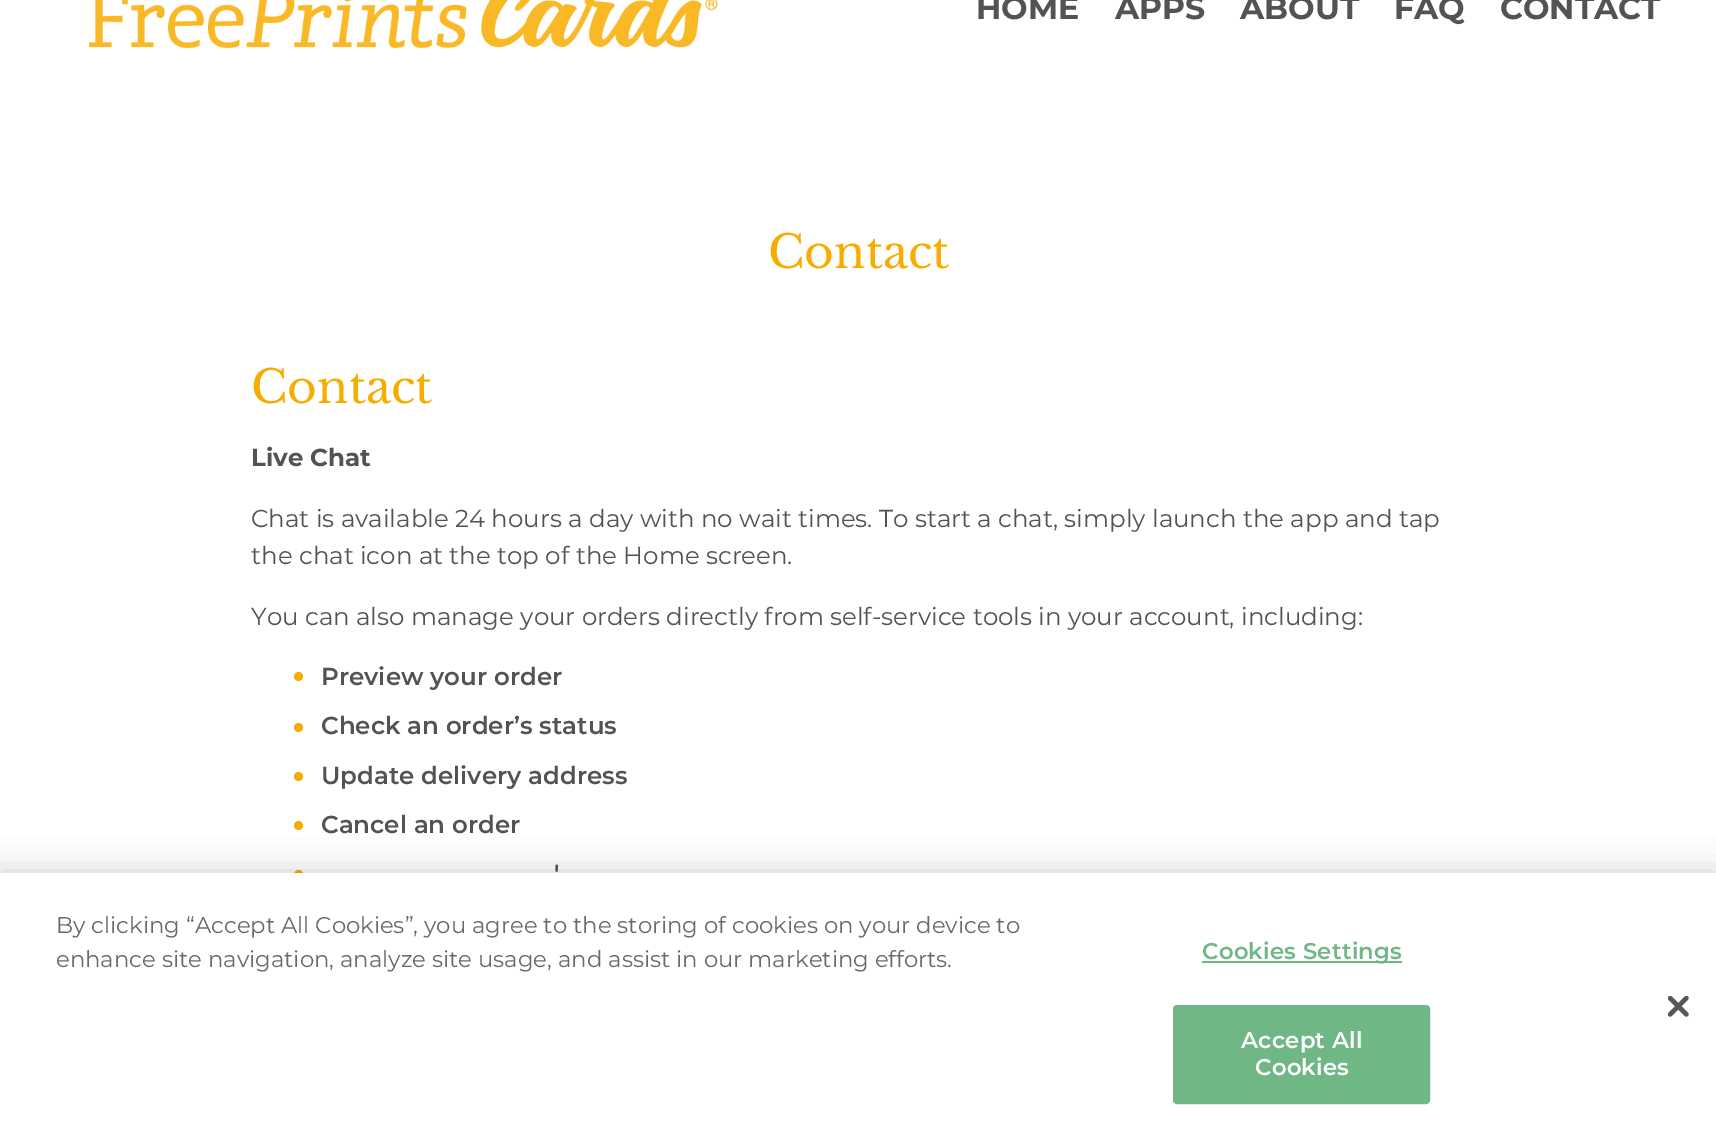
%!PS-Adobe-3.0
%%BoundingBox: 0 0 1716 1139
%%LanguageLevel: 3
%%Pages: 1
%%EndComments
%%BeginProlog
/setink { dup -16 bitshift 255 div exch dup -8 bitshift 255 and 255 div exch 255 and 255 div setrgbcolor } def
/usefont { [ exch dup neg 0 0 3 -1 roll 0 0 ] selectfont } def
/setalpha { dup .setfillconstantalpha .setstrokeconstantalpha } def
/disc { newpath 0 360 arc closepath } def
/rrect { 5 dict begin { /r /h /w /y /x } { exch def } forall
  x r add y moveto x w add y 2 copy h add r arct x w add y h add x 1 index r arct
  x y h add x y r arct x y 2 copy exch w add exch r arct closepath end } def
/softshadow { 12 dict begin { /a /b /q /h /w /y /x } { exch def } forall gsave /was 0 def
  9 -2 -9 { dup b mul 4 div /e exch def 1 sub .425 mul 2.718 exch exp 1 add a .99 .min exch div /now exch def
    1 1 now sub 1 was sub div sub setalpha /was now def
    w h .min e 2 mul add 0 gt { x e sub y e sub w e 2 mul add h e 2 mul add
      q e add b .6 mul add w h .min 2 div e add .min 0 .max rrect fill } if } for grestore end } def
/drawimage { 5 dict begin { /h /w /y /x /name } { exch def } forall
  gsave x y translate w h scale
  w h 8 [w 0 0 h 0 0] name (r) file false 3 colorimage grestore end } def
%%EndProlog
%%BeginSetup
<< /PageSize [1716 1139] /PageUsesTransparency true >> setpagedevice
%%EndSetup
%%Page: 1 1
0 .pushpdf14devicefilter
0 1139 translate 1 -1 scale
4 setmiterlimit
16#FFFFFF setink
0 0 1716 1139 rectfill
(img1.raw) 89 0 629 49 drawimage
/Montserrat-Bold 31.5 usefont
16#545353 setink
[
    [(HOME) 976 19]
    [(APPS) 1115 19]
    [(ABOUT) 1240 19]
    [(FAQ) 1394 19]
    [(CONTACT) 1500 19]
] { aload pop moveto show } forall
/LibreBaskerville-Regular 45.5 usefont
16#F7AD00 setink
768 268 moveto (Contact) show
251 403 moveto (Contact) show
/Montserrat-Bold 24.5 usefont
16#545353 setink
251 466 moveto (Live Chat) show
/Montserrat-Regular 24.5 usefont
[
    [(Chat is available 24 hours a day with no wait times. To start a chat, simply launch the app and tap) 251 527]
    [(the chat icon at the top of the Home screen.) 251 564]
    [(You can also manage your orders directly from self-service tools in your account, including:) 251 625]
] { aload pop moveto show } forall
16#F7AD00 setink
298.5 676.5 4.5 disc fill
/Montserrat-SemiBold 24.5 usefont
16#545353 setink
321 685 moveto (Preview your order) show
16#F7AD00 setink
298.5 727.5 4.5 disc fill
16#545353 setink
321 734 moveto (Check an order’s status) show
16#F7AD00 setink
298.5 776.5 4.5 disc fill
16#545353 setink
321 784 moveto (Update delivery address) show
16#F7AD00 setink
298.5 825.5 4.5 disc fill
16#545353 setink
321 833 moveto (Cancel an order) show
554 882 moveto (') show
16#F7AD00 setink
298.5 874.5 4.5 disc fill
16#000000 setink
0 873 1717 266 0 16 0.2 softshadow
16#FFFFFF setink
0 873 1716 266 rectfill
/Montserrat-Regular 22.75 usefont
16#696969 setink
56 933 moveto (By clicking “Accept All Cookies”, you agree to the storing of cookies on your device to) show
56 967 moveto (enhance site navigation, analyze site usage, and assist in our marketing efforts.) show
16#6FB886 setink
1202 961 200 2 rectfill
/Montserrat-SemiBold 22.75 usefont
1202 959 moveto 0.25 0 (Cookies Settings) ashow
1174 1006 255 97 3 rrect gsave fill grestore
2 setlinewidth
stroke
16#FFFFFF setink
1241 1048 moveto 0.25 0 (Accept All) ashow
1255 1075 moveto 0.25 0 (Cookies) ashow
(img2.raw) 1668 996 21 21 drawimage
.poppdf14devicefilter showpage
%%EOF
